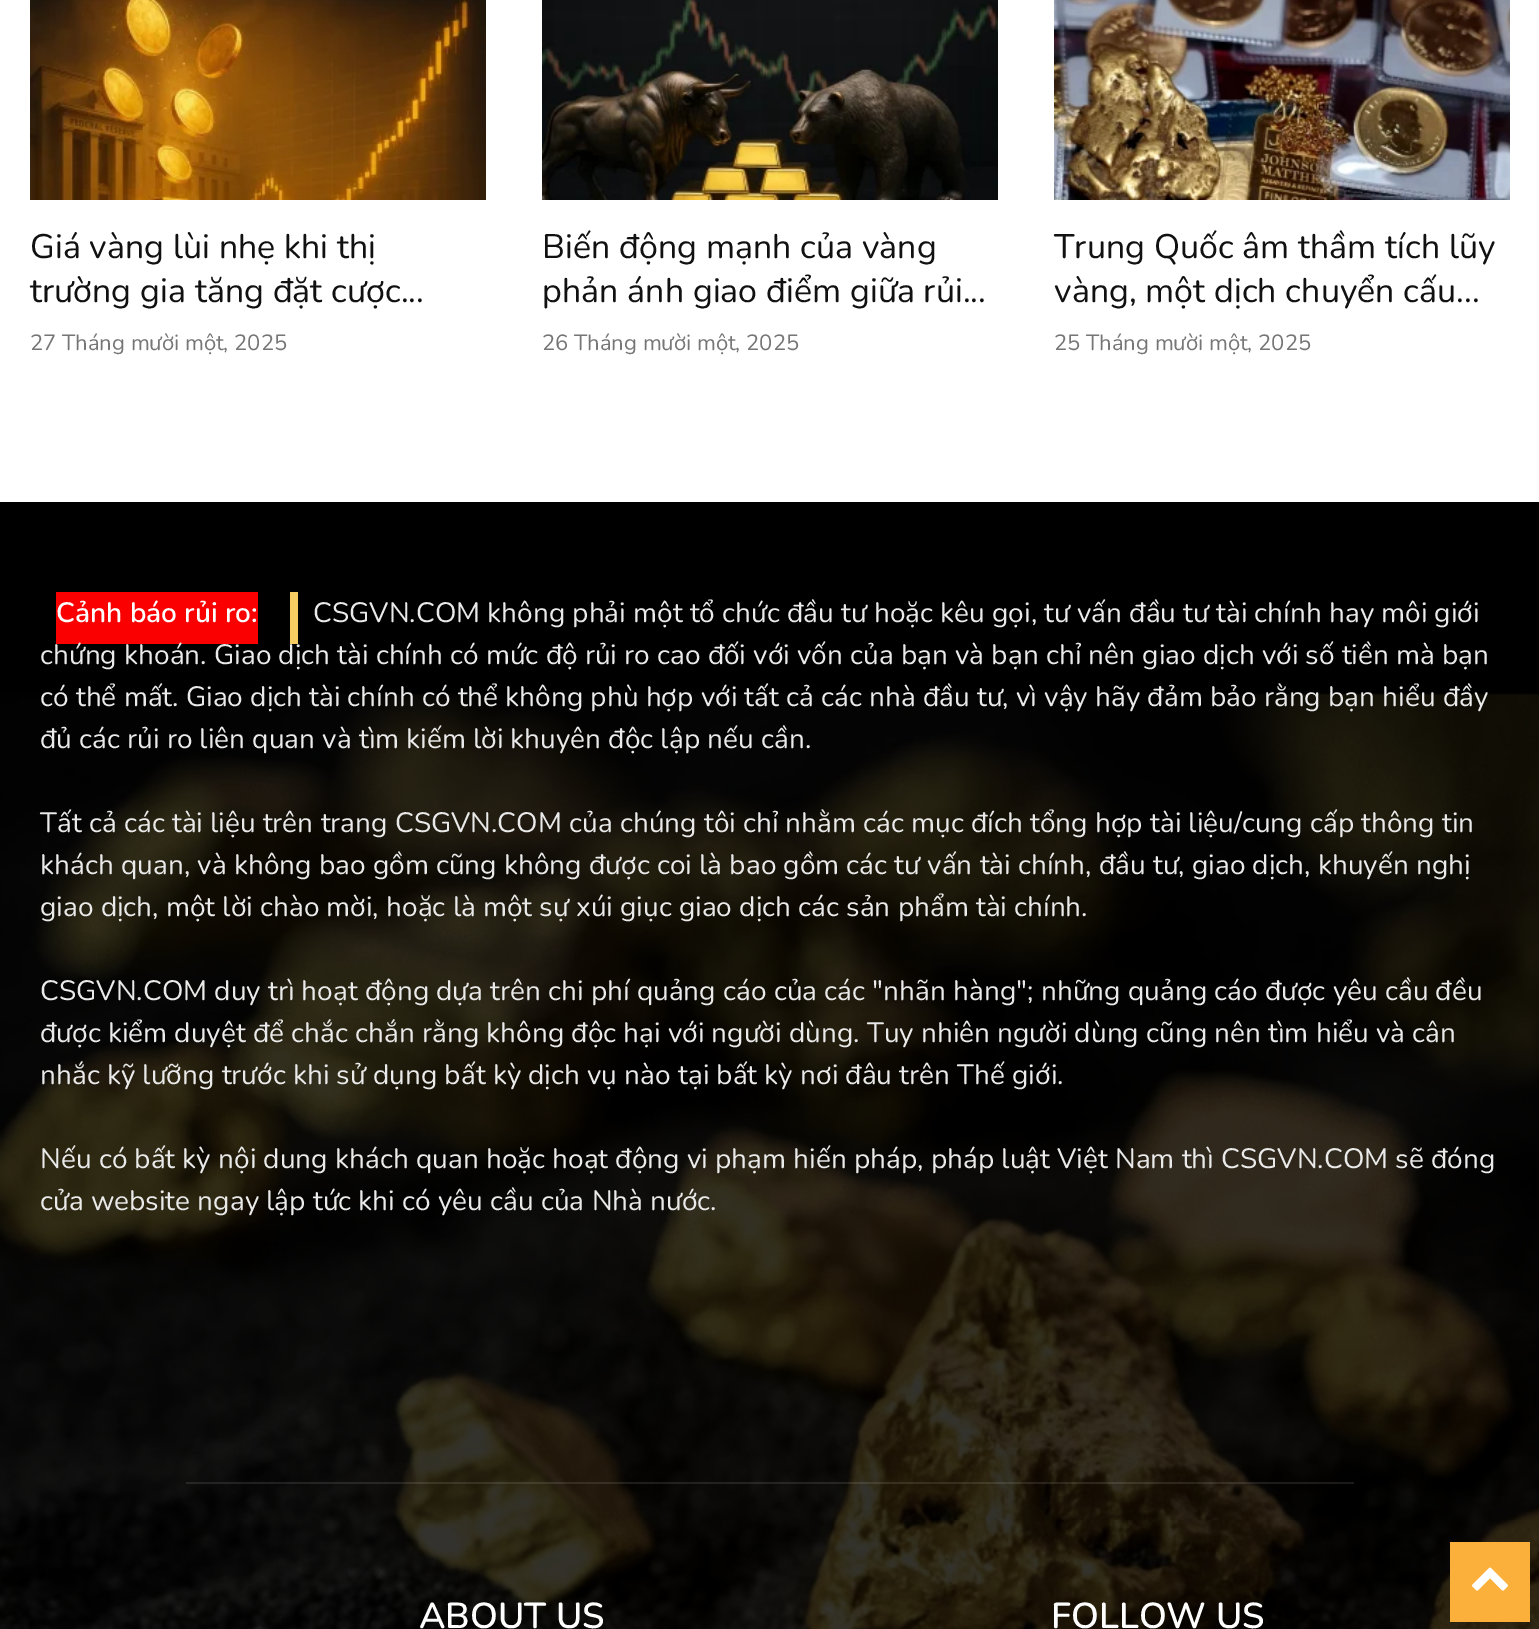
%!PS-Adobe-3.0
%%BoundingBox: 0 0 1539 1629
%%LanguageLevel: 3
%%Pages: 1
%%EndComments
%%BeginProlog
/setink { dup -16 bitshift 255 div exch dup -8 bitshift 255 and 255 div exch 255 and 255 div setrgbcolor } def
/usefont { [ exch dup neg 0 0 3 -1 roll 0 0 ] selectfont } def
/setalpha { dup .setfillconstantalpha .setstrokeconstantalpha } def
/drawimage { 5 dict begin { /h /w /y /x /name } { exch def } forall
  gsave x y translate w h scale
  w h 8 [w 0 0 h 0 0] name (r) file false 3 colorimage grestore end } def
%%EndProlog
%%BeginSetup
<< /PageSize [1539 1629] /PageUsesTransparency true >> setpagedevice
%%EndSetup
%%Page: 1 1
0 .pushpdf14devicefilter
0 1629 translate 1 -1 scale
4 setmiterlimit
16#FFFFFF setink
0 0 1539 1629 rectfill
(img1.raw) 30 0 456 200 drawimage
/Nunito-Regular 34 usefont
16#111111 setink
30 258 moveto (Giá vàng lùi nhẹ khi thị) show
30 302 moveto (trường gia tăng đặt cược...) show
/Nunito-Regular 22 usefont
16#767676 setink
30 350 moveto (27 Tháng mười một, 2025) show
(img2.raw) 542 0 456 200 drawimage
/Nunito-Regular 34 usefont
16#111111 setink
542 258 moveto (Biến động mạnh của vàng) show
542 302 moveto (phản ánh giao điểm giữa rủi...) show
/Nunito-Regular 22 usefont
16#767676 setink
542 350 moveto (26 Tháng mười một, 2025) show
(img3.raw) 1054 0 456 200 drawimage
/Nunito-Regular 34 usefont
16#111111 setink
1054 258 moveto (Trung Quốc âm thầm tích lũy) show
1054 302 moveto (vàng, một dịch chuyển cấu...) show
/Nunito-Regular 22 usefont
16#767676 setink
1054 350 moveto (25 Tháng mười một, 2025) show
16#000000 setink
0 502 1539 1127 rectfill
16#FA0000 setink
56 592 202 52 rectfill
/Nunito-SemiBold 28 usefont
16#FFFFFF setink
56 622 moveto (Cảnh báo rủi ro:) show
16#F7CC62 setink
290 592 8 52 rectfill
/Nunito-Regular 28 usefont
16#EAEAEA setink
313 622 moveto (CSGVN.COM không phải một tổ chức đầu tư hoặc kêu gọi, tư vấn đầu tư tài chính hay môi giới) show
40 664 moveto (chứng khoán. Giao dịch tài chính có mức độ rủi ro cao đối với vốn của bạn và bạn chỉ nên giao dịch với số tiền mà bạn) show
(img4.raw) 0 693 1539 936 drawimage
[
    [(có thể mất. Giao dịch tài chính có thể không phù hợp với tất cả các nhà đầu tư, vì vậy hãy đảm bảo rằng bạn hiểu đầy) 40 706]
    [(đủ các rủi ro liên quan và tìm kiếm lời khuyên độc lập nếu cần.) 40 748]
    [(Tất cả các tài liệu trên trang CSGVN.COM của chúng tôi chỉ nhằm các mục đích tổng hợp tài liệu/cung cấp thông tin) 40 832]
    [(khách quan, và không bao gồm cũng không được coi là bao gồm các tư vấn tài chính, đầu tư, giao dịch, khuyến nghị) 40 874]
    [(giao dịch, một lời chào mời, hoặc là một sự xúi giục giao dịch các sản phẩm tài chính.) 40 916]
    [(CSGVN.COM duy trì hoạt động dựa trên chi phí quảng cáo của các "nhãn hàng"; những quảng cáo được yêu cầu đều) 40 1000]
    [(được kiểm duyệt để chắc chắn rằng không độc hại với người dùng. Tuy nhiên người dùng cũng nên tìm hiểu và cân) 40 1042]
    [(nhắc kỹ lưỡng trước khi sử dụng bất kỳ dịch vụ nào tại bất kỳ nơi đâu trên Thế giới.) 40 1084]
    [(Nếu có bất kỳ nội dung khách quan hoặc hoạt động vi phạm hiến pháp, pháp luật Việt Nam thì CSGVN.COM sẽ đóng) 40 1168]
    [(cửa website ngay lập tức khi có yêu cầu của Nhà nước.) 40 1210]
] { aload pop moveto show } forall
0.1 setalpha
16#FFFFFF setink
186 1482 1168 2 rectfill
/Nunito-SemiBold 36 usefont
1 setalpha
419 1628 moveto (ABOUT US) show
1051 1628 moveto (FOLLOW US) show
16#FBB03B setink
1450 1542 80 80 rectfill
(img5.raw) 1472 1567 36 24 drawimage
.poppdf14devicefilter showpage
%%EOF
